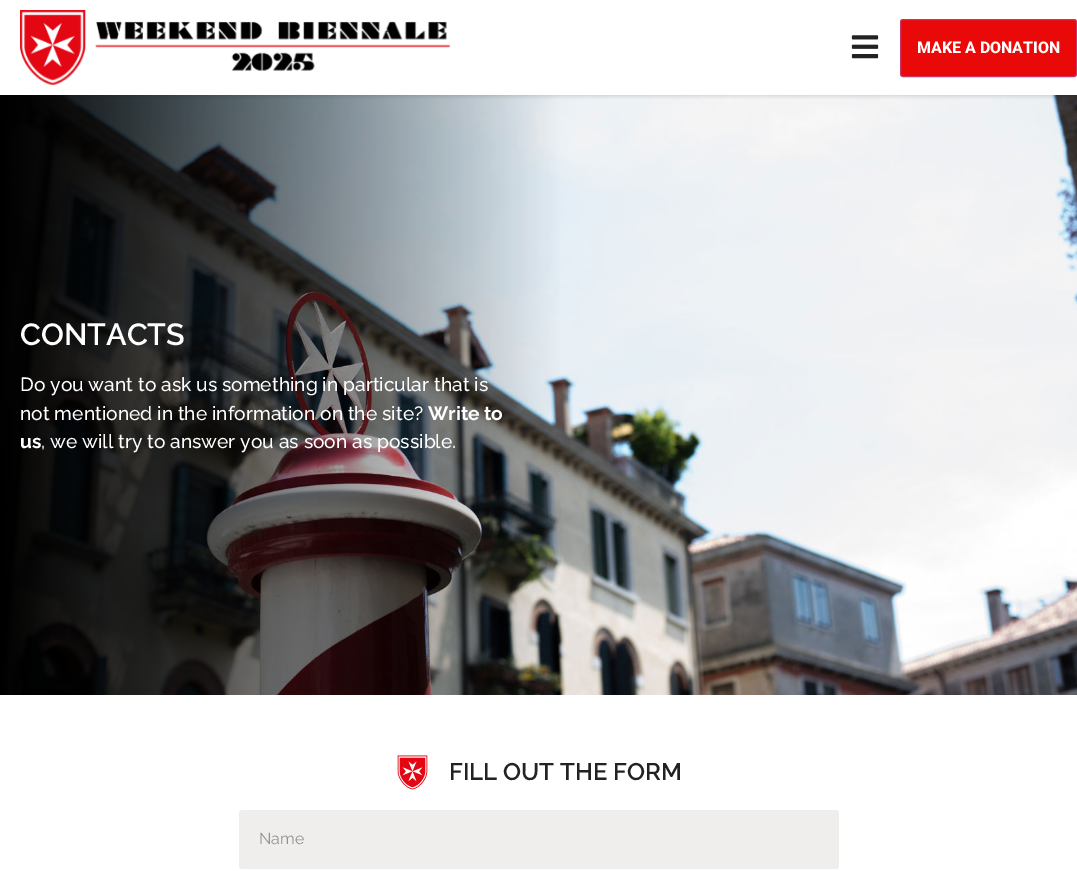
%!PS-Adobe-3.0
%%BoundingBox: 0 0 1077 871
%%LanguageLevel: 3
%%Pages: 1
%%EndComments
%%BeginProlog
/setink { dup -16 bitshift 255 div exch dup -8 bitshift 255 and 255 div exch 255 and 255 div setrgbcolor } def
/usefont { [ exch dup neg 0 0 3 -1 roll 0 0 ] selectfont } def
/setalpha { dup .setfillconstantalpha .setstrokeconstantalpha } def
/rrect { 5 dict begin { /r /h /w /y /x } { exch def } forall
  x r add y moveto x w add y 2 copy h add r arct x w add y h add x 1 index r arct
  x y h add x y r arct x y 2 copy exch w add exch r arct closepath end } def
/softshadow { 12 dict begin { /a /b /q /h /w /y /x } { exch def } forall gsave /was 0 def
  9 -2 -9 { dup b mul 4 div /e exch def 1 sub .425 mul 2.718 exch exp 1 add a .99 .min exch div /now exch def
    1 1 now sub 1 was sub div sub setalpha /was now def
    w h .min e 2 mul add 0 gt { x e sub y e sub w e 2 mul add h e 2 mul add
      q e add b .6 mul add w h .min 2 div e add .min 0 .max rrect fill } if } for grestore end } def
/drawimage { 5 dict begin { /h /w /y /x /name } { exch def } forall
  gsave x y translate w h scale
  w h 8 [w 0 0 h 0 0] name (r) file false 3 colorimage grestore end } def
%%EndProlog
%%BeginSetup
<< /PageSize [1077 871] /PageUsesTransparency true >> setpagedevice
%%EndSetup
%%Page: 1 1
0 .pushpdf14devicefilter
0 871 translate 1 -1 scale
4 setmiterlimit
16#FFFFFF setink
0 0 1077 871 rectfill
(img3.raw) 0 95 1077 600 drawimage
gsave
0 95 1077 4 rectclip
16#000000 setink
0 0 1077 95 0 3 0.2 softshadow
grestore
(img1.raw) 20 10 430 75 drawimage
(img2.raw) 851 35 28 24 drawimage
16#FAFAFA setink
900 19 177 58 rectfill
16#EA0909 setink
900.5 19.5 176 57 2.5 rrect gsave fill grestore
16#CC3366 setink
stroke
/Roboto-ExtraBold 16 usefont
16#FFFFFF setink
917 53 moveto (MAKE A DONATION) show
/Raleway-SemiBold 30.5 usefont
20 345 moveto (CONTACTS) show
/Raleway-Medium 19.2 usefont
20 391 moveto (Do you want to ask us something in particular that is) show
20 420 moveto (not mentioned in the information on the site?) show
/Raleway-Bold 19.2 usefont
428 420 moveto (Write to) show
20 448 moveto (us) show
/Raleway-Medium 19.2 usefont
41 448 moveto (, we will try to answer you as soon as possible.) show
(img4.raw) 397 755 31 35 drawimage
/Raleway-SemiBold 24 usefont
16#222222 setink
449 780 moveto (FILL OUT THE FORM) show
16#F0EDED setink
239 810 600 59 3 rrect fill
/Raleway-Regular 16 usefont
16#929191 setink
259 844 moveto (Name) show
.poppdf14devicefilter showpage
%%EOF
